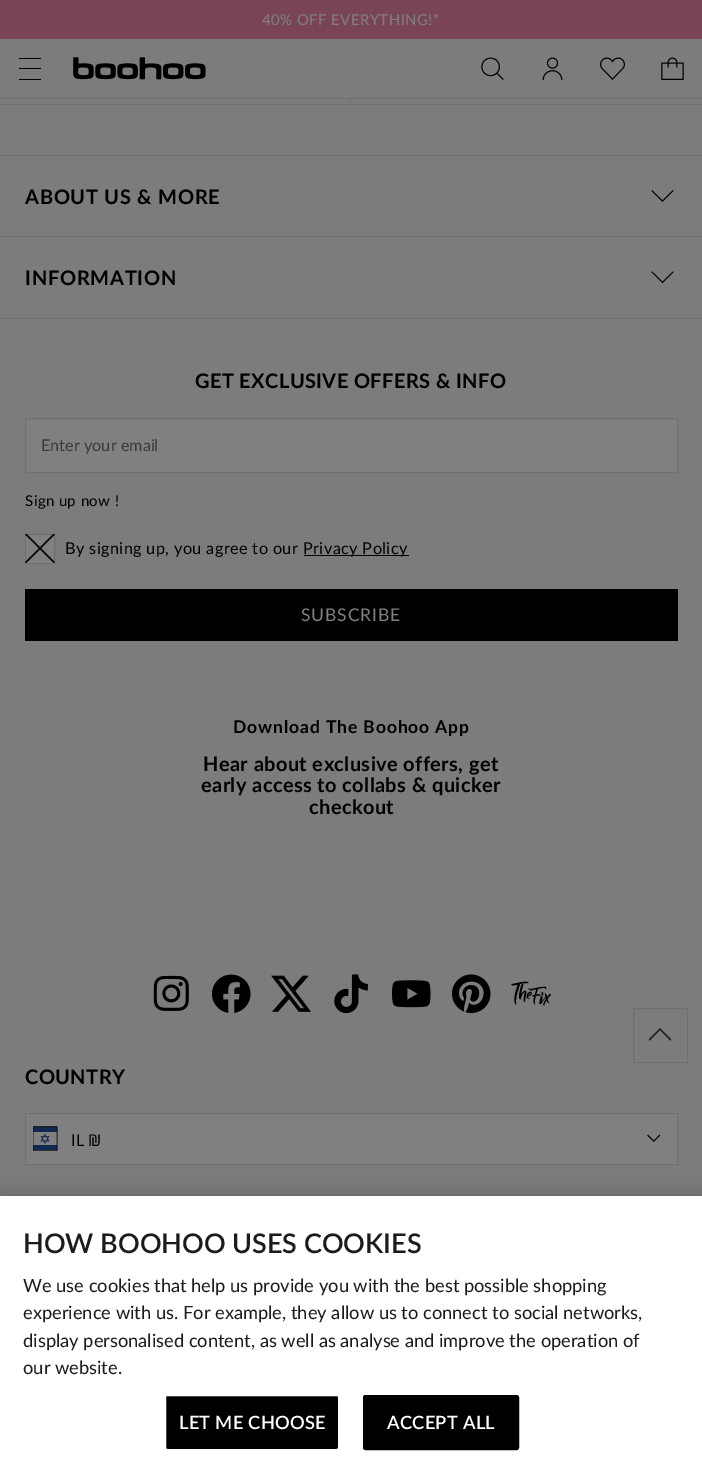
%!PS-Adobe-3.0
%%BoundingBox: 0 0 702 1466
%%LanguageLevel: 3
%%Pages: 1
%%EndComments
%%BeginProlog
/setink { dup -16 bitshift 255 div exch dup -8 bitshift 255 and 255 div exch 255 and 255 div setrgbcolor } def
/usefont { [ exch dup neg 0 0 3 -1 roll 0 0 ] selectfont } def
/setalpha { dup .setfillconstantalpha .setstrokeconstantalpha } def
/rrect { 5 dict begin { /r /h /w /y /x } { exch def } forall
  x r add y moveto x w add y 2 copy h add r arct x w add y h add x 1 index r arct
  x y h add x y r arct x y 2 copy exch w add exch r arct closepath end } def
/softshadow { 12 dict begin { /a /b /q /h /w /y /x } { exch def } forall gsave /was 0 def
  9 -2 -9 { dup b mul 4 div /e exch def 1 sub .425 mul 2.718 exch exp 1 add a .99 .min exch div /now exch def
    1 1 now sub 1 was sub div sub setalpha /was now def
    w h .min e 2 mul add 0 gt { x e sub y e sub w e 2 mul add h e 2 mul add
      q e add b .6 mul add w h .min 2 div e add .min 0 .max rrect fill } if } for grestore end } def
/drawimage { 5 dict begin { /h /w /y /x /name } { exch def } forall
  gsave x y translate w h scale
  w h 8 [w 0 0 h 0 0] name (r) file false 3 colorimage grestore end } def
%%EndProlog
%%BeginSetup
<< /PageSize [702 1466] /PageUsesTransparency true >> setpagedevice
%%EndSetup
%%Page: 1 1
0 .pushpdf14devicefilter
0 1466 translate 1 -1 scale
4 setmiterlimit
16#7C7C7C setink
0 0 702 1466 rectfill
16#794458 setink
0 0 702 39 rectfill
/Lato-Regular 15 usefont
16#808080 setink
262 25 moveto 0.4 0 (40% OFF EVERYTHING!*) ashow
[
    [0 98 702 1 16#6F6F6F]
    [19 58 22 1 16#000000]
    [19 79 22 1 16#000000]
    [19 68 22 1 16#000000]
] { aload pop setink rectfill } forall
(img1.raw) 73 57 133 23 drawimage
(img2.raw) 481 57 23 23 drawimage
(img3.raw) 542 57 21 24 drawimage
(img4.raw) 600 57 25 23 drawimage
(img5.raw) 661 57 23 23 drawimage
[
    [350 99 1 6 16#6F6F6F]
    [0 104 702 1 16#6F6F6F]
    [0 155 702 1 16#6F6F6F]
] { aload pop setink rectfill } forall
/Lato-Bold 20 usefont
16#000000 setink
25 204 moveto 0.75 0 (ABOUT US & MORE) ashow
(img6.raw) 651 190 23 12 drawimage
16#6F6F6F setink
0 236 702 1 rectfill
0 318 702 1 rectfill
16#000000 setink
25 285 moveto 0.75 0 (INFORMATION) ashow
(img7.raw) 651 271 23 13 drawimage
195 388 moveto 0.4 0 (GET EXCLUSIVE OFFERS & INFO) ashow
16#808080 setink
25.5 418.5 moveto 677.5 418.5 lineto 677.5 472.5 lineto 25.5 472.5 lineto closepath gsave fill grestore
16#6F6F6F setink
stroke
/Lato-Regular 16.25 usefont
16#393939 setink
41 451 moveto (Enter your email) show
/Lato-Regular 15 usefont
16#000000 setink
25 506 moveto 0.4 0 (Sign up now !) ashow
16#808080 setink
25.5 534.5 moveto 54.5 534.5 lineto 54.5 563.5 lineto 25.5 563.5 lineto closepath gsave fill grestore
16#6F6F6F setink
stroke
(img8.raw) 25 533 30 30 drawimage
/Lato-Regular 16.25 usefont
16#000000 setink
65 554 moveto 0.4 0 (By signing up, you agree to our) ashow
304 555 105 1 rectfill
303 554 moveto 0.4 0 (Privacy Policy) ashow
25 589 653 52 rectfill
/Lato-Regular 17.5 usefont
16#808080 setink
301 621 moveto 0.9 0 (SUBSCRIBE) ashow
/Lato-Bold 17.5 usefont
16#000000 setink
233 733 moveto 0.9 0 (Download The Boohoo App) ashow
/Lato-Bold 20 usefont
203 771 moveto 0.4 0 (Hear about exclusive offers, get) ashow
201 792 moveto 0.4 0 (early access to collabs & quicker) ashow
309 814 moveto 0.4 0 (checkout) ashow
(img9.raw) 153 975 36 36 drawimage
(img10.raw) 211 974 40 39 drawimage
(img11.raw) 271 975 40 37 drawimage
(img12.raw) 334 974 34 40 drawimage
(img13.raw) 391 980 40 28 drawimage
(img14.raw) 451 974 40 40 drawimage
(img15.raw) 511 981 40 25 drawimage
25 1084 moveto 0.4 0 (COUNTRY) ashow
16#808080 setink
25.5 1113.5 moveto 677.5 1113.5 lineto 677.5 1164.5 lineto 25.5 1164.5 lineto closepath gsave fill grestore
16#6F6F6F setink
stroke
(img16.raw) 33 1126 25 25 drawimage
/Lato-Regular 16.25 usefont
16#000000 setink
71 1146 moveto (IL) show
/NotoSans-Regular 16.25 usefont
88 1146 moveto (₪) show
(img17.raw) 647 1134 14 8 drawimage
16#6F6F6F setink
633.5 1008.5 54 54 rectstroke
(img18.raw) 648 1028 24 13 drawimage
16#000000 setink
0 1196 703 270 0 11 0.2 softshadow
16#FFFFFF setink
0 1196 702 270 rectfill
/Lato-SemiBold 27 usefont
16#1B1B1B setink
23 1253 moveto (HOW BOOHOO USES COOKIES) show
/Lato-Regular 18.3 usefont
[
    [(We use cookies that help us provide you with the best possible shopping) 23 1292]
    [(experience with us. For example, they allow us to connect to social networks,) 23 1319]
    [(display personalised content, as well as analyse and improve the operation of) 23 1347]
    [(our website.) 23 1374]
] { aload pop moveto show } forall
16#000000 setink
165.5 1395.5 173 54 2 rrect gsave fill grestore
16#FFFFFF setink
stroke
/Lato-SemiBold 18.3 usefont
179 1429 moveto 0.25 0 (LET ME CHOOSE) ashow
16#000000 setink
363.5 1395.5 155 54 2 rrect gsave fill grestore
stroke
16#FFFFFF setink
387 1429 moveto 0.25 0 (ACCEPT ALL) ashow
.poppdf14devicefilter showpage
%%EOF
